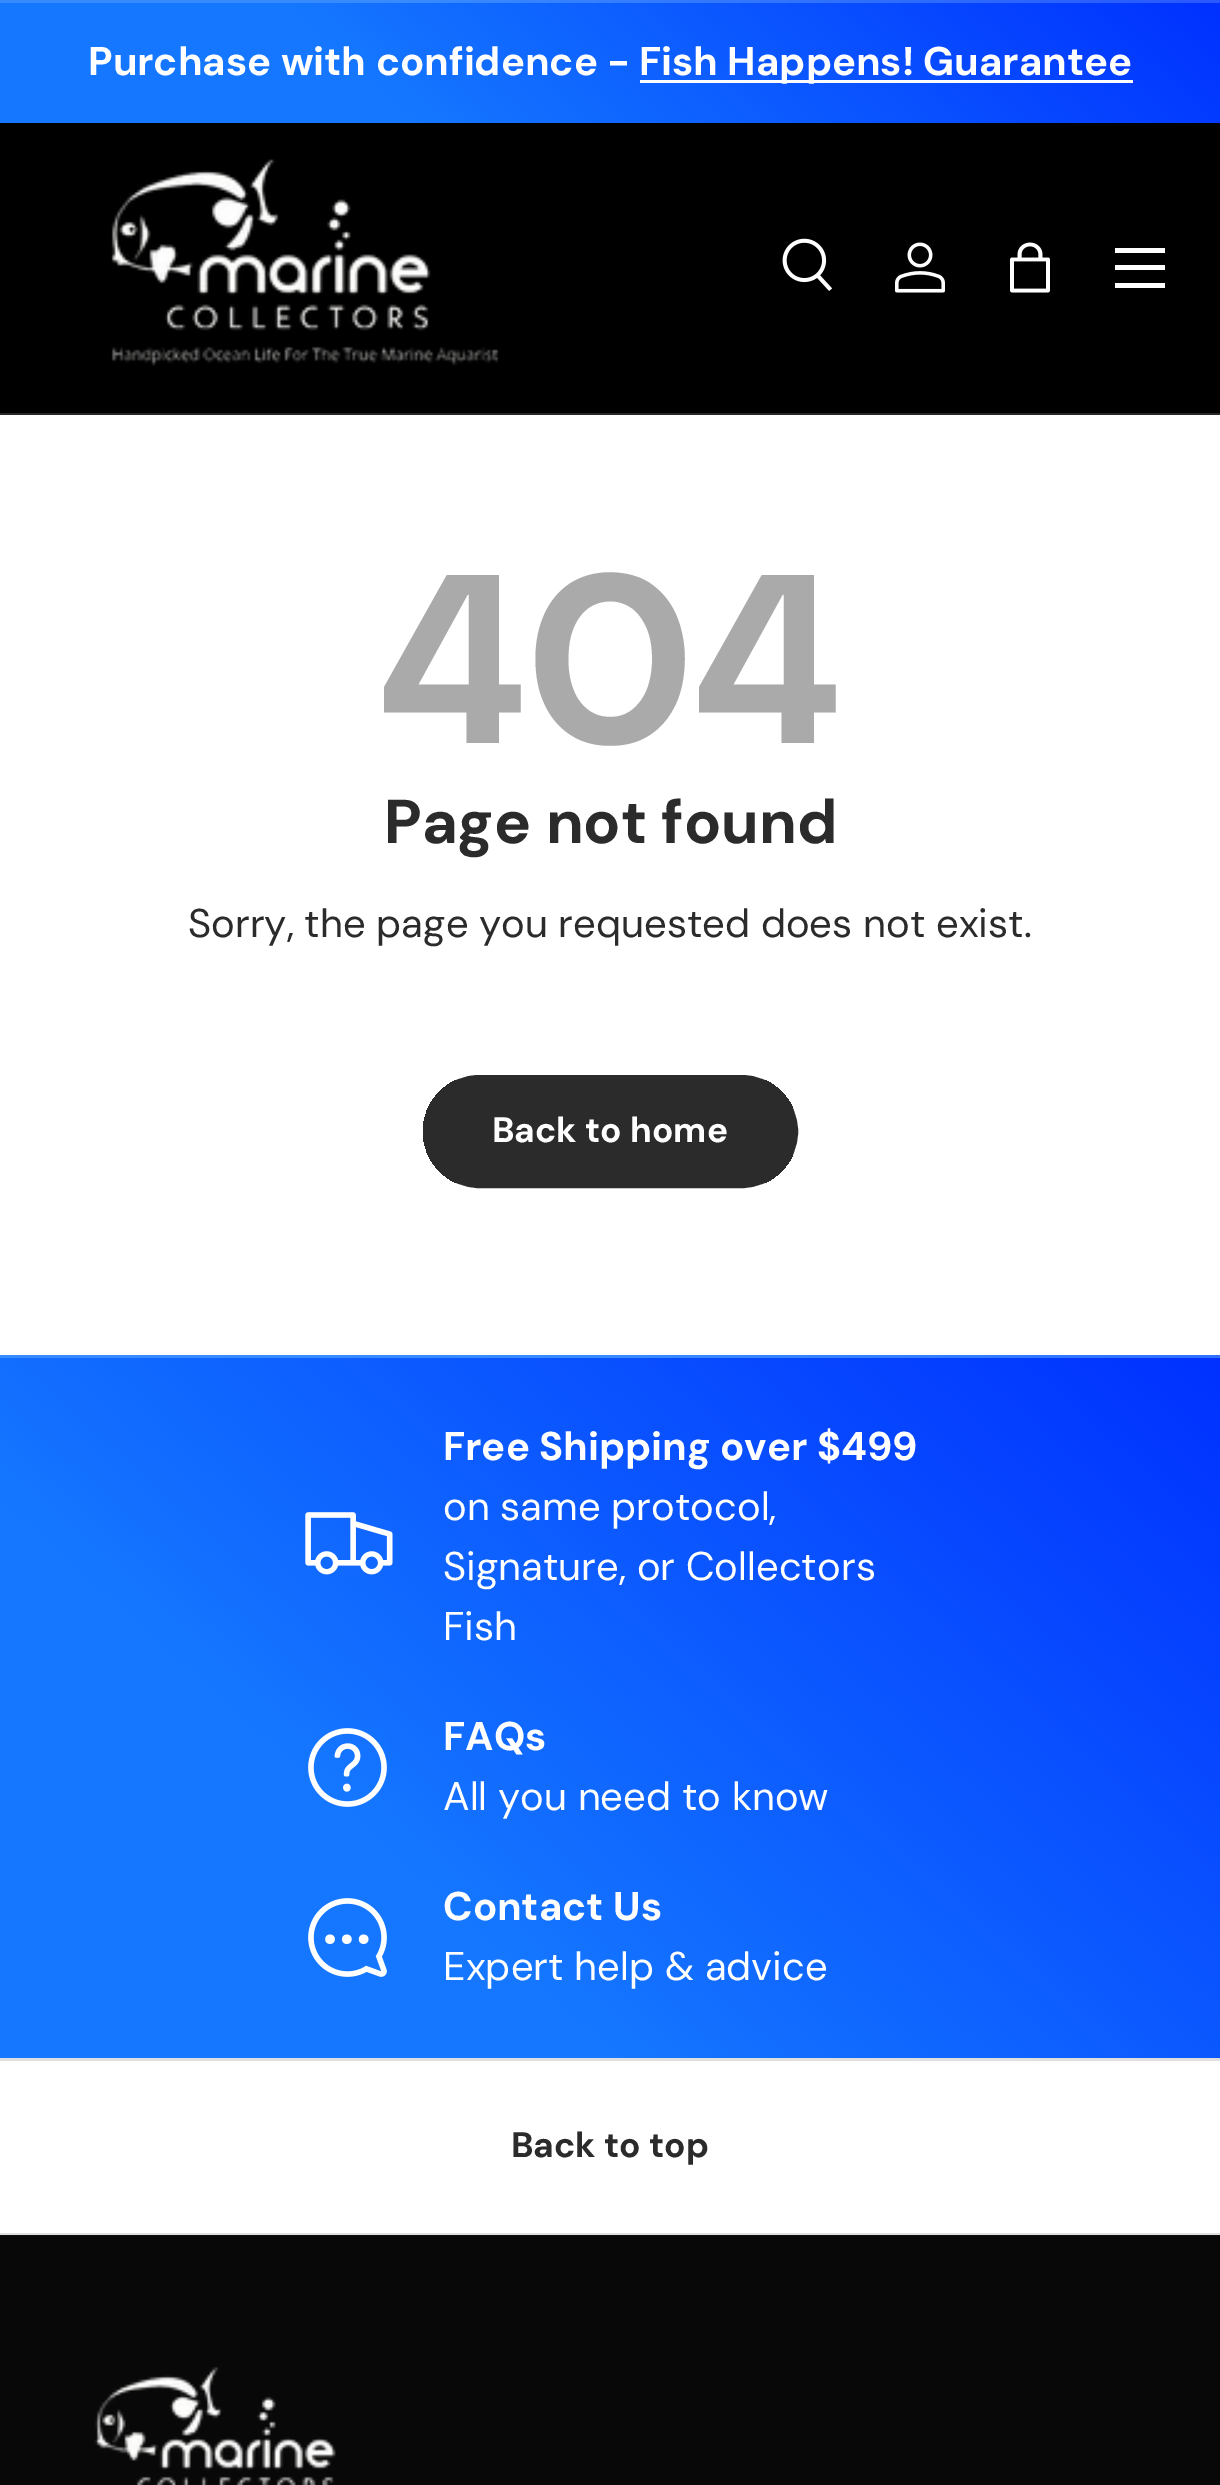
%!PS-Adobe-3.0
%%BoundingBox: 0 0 1220 2485
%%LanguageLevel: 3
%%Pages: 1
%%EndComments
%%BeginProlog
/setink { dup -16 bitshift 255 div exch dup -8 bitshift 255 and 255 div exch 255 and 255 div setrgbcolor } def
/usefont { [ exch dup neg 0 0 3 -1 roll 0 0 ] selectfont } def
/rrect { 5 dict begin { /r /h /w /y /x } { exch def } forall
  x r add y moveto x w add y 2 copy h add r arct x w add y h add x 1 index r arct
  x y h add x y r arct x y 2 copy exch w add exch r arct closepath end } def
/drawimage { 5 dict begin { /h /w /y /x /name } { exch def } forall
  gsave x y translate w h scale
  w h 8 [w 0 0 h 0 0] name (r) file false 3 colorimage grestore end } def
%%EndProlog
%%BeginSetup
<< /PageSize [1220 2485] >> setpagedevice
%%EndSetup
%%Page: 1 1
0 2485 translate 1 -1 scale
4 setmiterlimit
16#FFFFFF setink
0 0 1220 2485 rectfill
16#DFDFDF setink
0 2233 1220 2 rectfill
gsave 0 0 moveto 1220 0 lineto 1220 3 lineto 0 3 lineto closepath clip newpath
<< /ShadingType 2 /ColorSpace /DeviceRGB /Coords [307 279 913 -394] /Extend [true true] /Function << /FunctionType 3 /Domain [0 1] /Functions [<< /FunctionType 2 /Domain [0 1] /C0 [0.22 0.545 1] /C1 [0.22 0.545 1] /N 1 >> << /FunctionType 2 /Domain [0 1] /C0 [0.22 0.545 1] /C1 [0.22 0.545 1] /N 1 >> << /FunctionType 2 /Domain [0 1] /C0 [0.22 0.545 1] /C1 [0.149 0.314 1] /N 1 >>] /Bounds [0.08 0.31] /Encode [0 1 0 1 0 1] >> >> shfill grestore
gsave 0 3 moveto 1220 3 lineto 1220 123 lineto 0 123 lineto closepath clip newpath
<< /ShadingType 2 /ColorSpace /DeviceRGB /Coords [307 399 913 -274] /Extend [true true] /Function << /FunctionType 3 /Domain [0 1] /Functions [<< /FunctionType 2 /Domain [0 1] /C0 [0.082 0.467 1] /C1 [0.082 0.467 1] /N 1 >> << /FunctionType 2 /Domain [0 1] /C0 [0.082 0.467 1] /C1 [0.082 0.467 1] /N 1 >> << /FunctionType 2 /Domain [0 1] /C0 [0.082 0.467 1] /C1 [0 0.192 1] /N 1 >>] /Bounds [0.08 0.31] /Encode [0 1 0 1 0 1] >> >> shfill grestore
/DMSans-Bold 40 usefont
16#FFFFFF setink
88 75 moveto (Purchase with confidence -) show
640 80 493 3 rectfill
639 75 moveto (Fish Happens! Guarantee) show
16#000000 setink
0 123 1220 290 rectfill
16#262626 setink
0 413 1220 2 rectfill
(img1.raw) 111 159 388 207 drawimage
(img2.raw) 782 238 51 53 drawimage
(img3.raw) 895 242 50 51 drawimage
(img4.raw) 1010 242 40 51 drawimage
[
    [1115 248 50 5 16#FFFFFF]
    [1115 283 50 5 16#FFFFFF]
    [1115 265 50 5 16#FFFFFF]
] { aload pop setink rectfill } forall
/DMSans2-Bold 240 usefont
16#AAAAAA setink
378 743 moveto (404) show
/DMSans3-Bold 61.75 usefont
16#2A2B2A setink
384 843 moveto (Page not found) show
/DMSans-Regular 40 usefont
188 937 moveto (Sorry, the page you requested does not exist.) show
gsave
423 1075 375 113 56.5 rrect clip newpath
gsave 423 1080 moveto 793 1080 lineto 793 1183 lineto 423 1183 lineto closepath clip newpath
<< /ShadingType 2 /ColorSpace /DeviceRGB /Coords [-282 1000 772 1263] /Extend [true true] /Function << /FunctionType 3 /Domain [0 1] /Functions [<< /FunctionType 2 /Domain [0 1] /C0 [0.322 0.325 0.322] /C1 [0.322 0.325 0.322] /N 1 >> << /FunctionType 2 /Domain [0 1] /C0 [0.165 0.169 0.165] /C1 [0.165 0.169 0.165] /N 1 >>] /Bounds [0.6] /Encode [0 1 0 1] >> >> shfill grestore
grestore
5 setlinewidth
425.5 1077.5 370 108 54 rrect stroke
/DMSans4-Bold 35.25 usefont
16#FFFFFF setink
492 1142 moveto (Back to home) show
gsave 0 1355 moveto 1220 1355 lineto 1220 1358 lineto 0 1358 lineto closepath clip newpath
<< /ShadingType 2 /ColorSpace /DeviceRGB /Coords [163 1504 1057 511] /Extend [true true] /Function << /FunctionType 3 /Domain [0 1] /Functions [<< /FunctionType 2 /Domain [0 1] /C0 [0.22 0.545 1] /C1 [0.22 0.545 1] /N 1 >> << /FunctionType 2 /Domain [0 1] /C0 [0.22 0.545 1] /C1 [0.22 0.545 1] /N 1 >> << /FunctionType 2 /Domain [0 1] /C0 [0.22 0.545 1] /C1 [0.149 0.314 1] /N 1 >>] /Bounds [0.08 0.31] /Encode [0 1 0 1 0 1] >> >> shfill grestore
gsave 0 1358 moveto 1220 1358 lineto 1220 2058 lineto 0 2058 lineto closepath clip newpath
<< /ShadingType 2 /ColorSpace /DeviceRGB /Coords [163 2204 1057 1211] /Extend [true true] /Function << /FunctionType 3 /Domain [0 1] /Functions [<< /FunctionType 2 /Domain [0 1] /C0 [0.082 0.467 1] /C1 [0.082 0.467 1] /N 1 >> << /FunctionType 2 /Domain [0 1] /C0 [0.082 0.467 1] /C1 [0.082 0.467 1] /N 1 >> << /FunctionType 2 /Domain [0 1] /C0 [0.082 0.467 1] /C1 [0 0.192 1] /N 1 >>] /Bounds [0.08 0.31] /Encode [0 1 0 1 0 1] >> >> shfill grestore
(img5.raw) 305 1512 88 63 drawimage
/DMSans-Bold 40 usefont
443 1460 moveto (Free Shipping over $499) show
/DMSans-Regular 40 usefont
[
    [(on same protocol,) 443 1520]
    [(Signature, or Collectors) 443 1580]
    [(Fish) 443 1640]
] { aload pop moveto show } forall
(img6.raw) 308 1728 79 79 drawimage
/DMSans-Bold 40 usefont
443 1750 moveto (FAQs) show
/DMSans-Regular 40 usefont
443 1810 moveto (All you need to know) show
(img7.raw) 308 1898 79 79 drawimage
/DMSans-Bold 40 usefont
443 1920 moveto (Contact Us) show
/DMSans-Regular 40 usefont
443 1980 moveto (Expert help & advice) show
16#DFDFDF setink
0 2058 1220 3 rectfill
/DMSans4-Bold 35.25 usefont
16#2A2B2A setink
511 2157 moveto (Back to top) show
16#080808 setink
0 2236 1220 249 rectfill
16#0D0D0D setink
0 2235 1220 1 rectfill
(img8.raw) 94 2367 242 118 drawimage
showpage
%%EOF
